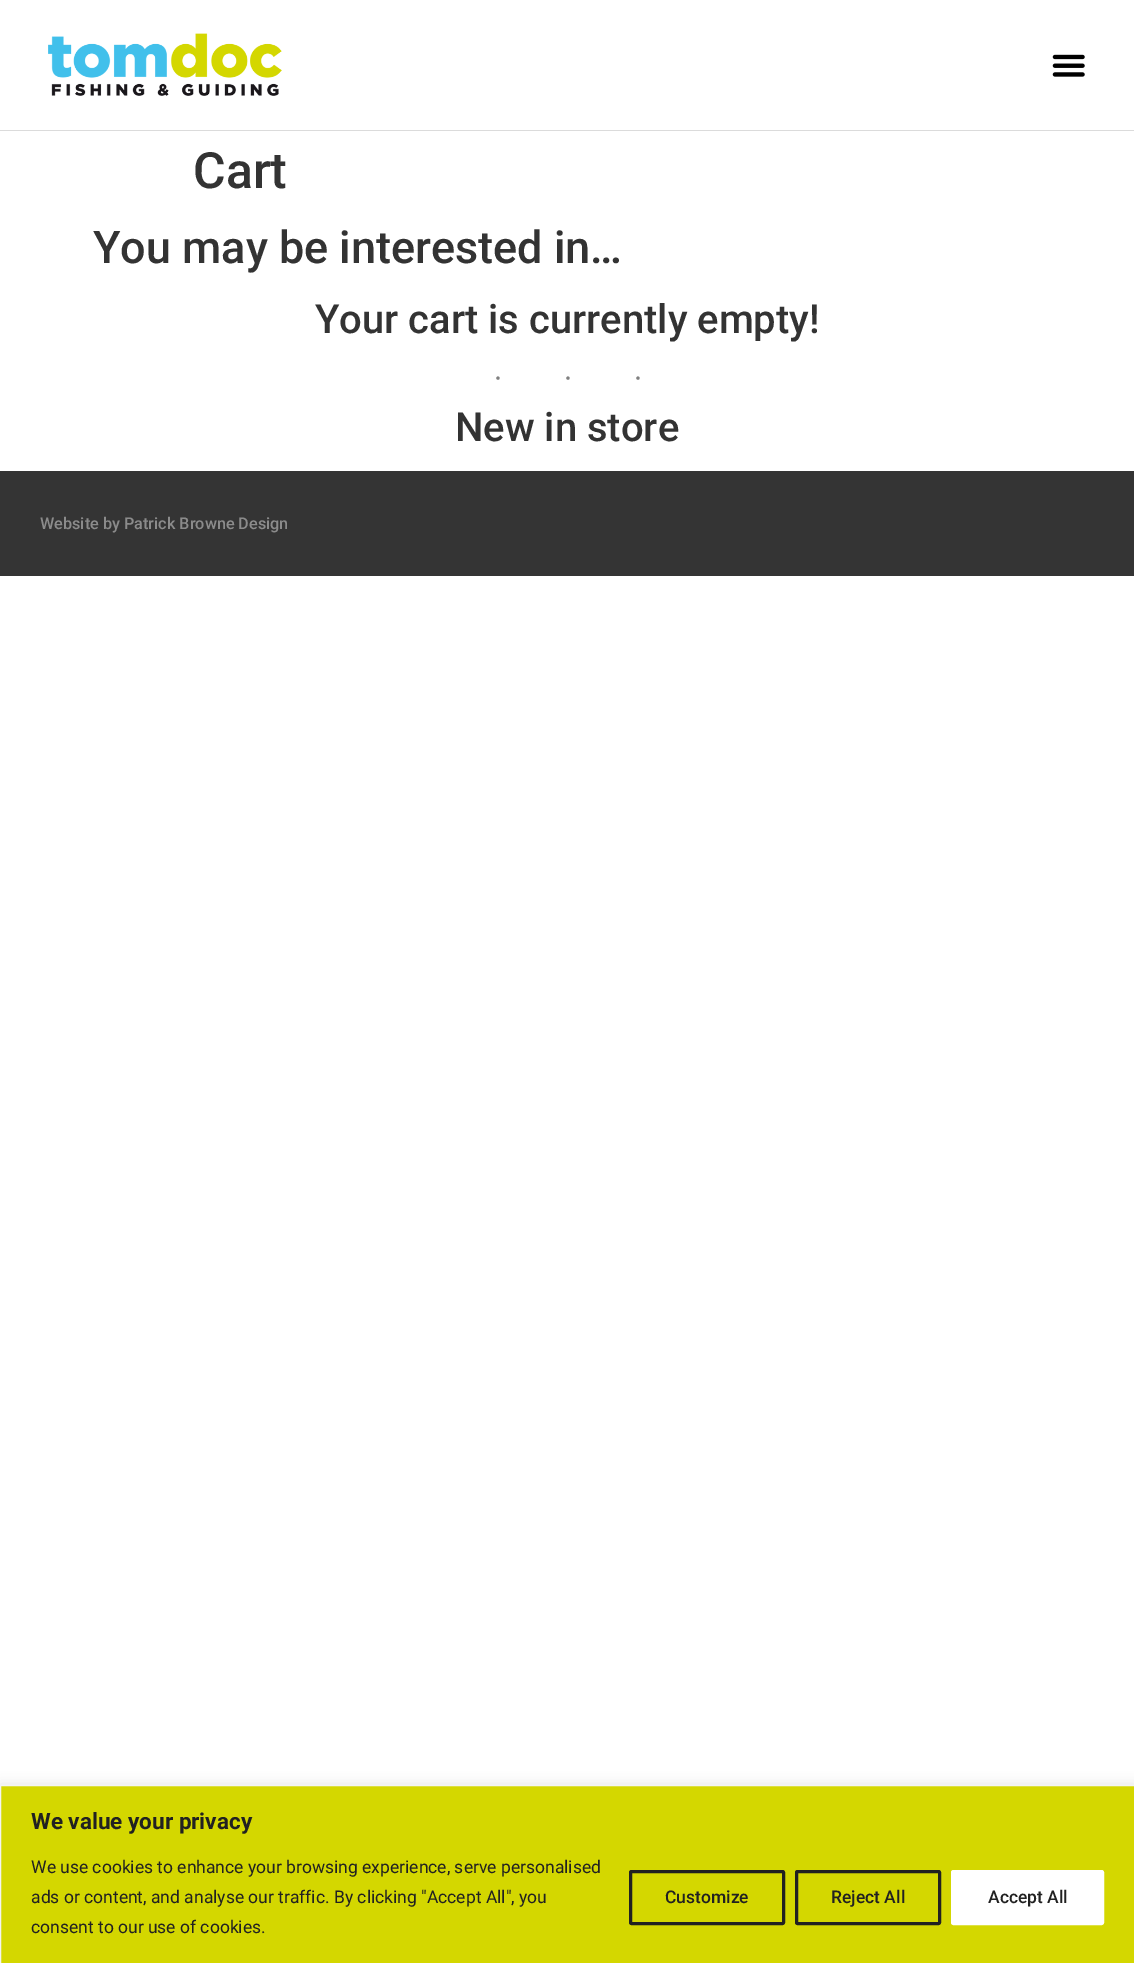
%!PS-Adobe-3.0
%%BoundingBox: 0 0 1134 1963
%%LanguageLevel: 3
%%Pages: 1
%%EndComments
%%BeginProlog
/setink { dup -16 bitshift 255 div exch dup -8 bitshift 255 and 255 div exch 255 and 255 div setrgbcolor } def
/usefont { [ exch dup neg 0 0 3 -1 roll 0 0 ] selectfont } def
/setalpha { dup .setfillconstantalpha .setstrokeconstantalpha } def
/rrect { 5 dict begin { /r /h /w /y /x } { exch def } forall
  x r add y moveto x w add y 2 copy h add r arct x w add y h add x 1 index r arct
  x y h add x y r arct x y 2 copy exch w add exch r arct closepath end } def
/softshadow { 12 dict begin { /a /b /q /h /w /y /x } { exch def } forall gsave /was 0 def
  9 -2 -9 { dup b mul 4 div /e exch def 1 sub .425 mul 2.718 exch exp 1 add a .99 .min exch div /now exch def
    1 1 now sub 1 was sub div sub setalpha /was now def
    w h .min e 2 mul add 0 gt { x e sub y e sub w e 2 mul add h e 2 mul add
      q e add b .6 mul add w h .min 2 div e add .min 0 .max rrect fill } if } for grestore end } def
/drawimage { 5 dict begin { /h /w /y /x /name } { exch def } forall
  gsave x y translate w h scale
  w h 8 [w 0 0 h 0 0] name (r) file false 3 colorimage grestore end } def
%%EndProlog
%%BeginSetup
<< /PageSize [1134 1963] /PageUsesTransparency true >> setpagedevice
%%EndSetup
%%Page: 1 1
0 .pushpdf14devicefilter
0 1963 translate 1 -1 scale
4 setmiterlimit
16#FFFFFF setink
0 0 1134 1963 rectfill
16#DBDBDB setink
0 130 1134 1 rectfill
(img1.raw) 48 33 234 63 drawimage
(img2.raw) 1052 54 33 23 drawimage
/Roboto-Medium 50 usefont
16#333333 setink
193 188 moveto (Cart) show
/Roboto-Medium 45 usefont
93 263 moveto (You may be interested in…) show
/Roboto-Medium 40 usefont
315 333 moveto (Your cart is currently empty!) show
/LiberationSerif-Regular 30 usefont
16#808080 setink
493 388 moveto 60 0 (···) ashow
/Roboto-Medium 40 usefont
16#333333 setink
455 441 moveto (New in store) show
16#343434 setink
0 471 1134 105 rectfill
/Roboto-Medium 16.25 usefont
16#8B8B8B setink
40 529 moveto (Website by Patrick Browne Design) show
16#ACABAB setink
0 1784 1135 179 0 6 0.3 softshadow
16#D4D700 setink
0.5 1785.5 moveto 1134.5 1785.5 lineto 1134.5 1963.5 lineto 0.5 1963.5 lineto closepath gsave fill grestore
16#F4F4F4 setink
stroke
/Roboto-Bold 22.5 usefont
16#212121 setink
31 1829 moveto (We value your privacy) show
/Roboto-Regular 17.5 usefont
[
    [(We use cookies to enhance your browsing experience, serve personalised) 31 1873]
    [(ads or content, and analyse our traffic. By clicking "Accept All", you) 31 1903]
    [(consent to our use of cookies.) 31 1933]
] { aload pop moveto show } forall
3 setlinewidth
630.5 1871.5 153 52 1 rrect stroke
/Roboto-Medium 17.5 usefont
665 1903 moveto (Customize) show
796.5 1871.5 143 52 1 rrect stroke
831 1903 moveto (Reject All) show
16#FFFFFF setink
952.5 1871.5 150 52 1 rrect gsave fill grestore
stroke
16#212121 setink
988 1903 moveto (Accept All) show
.poppdf14devicefilter showpage
%%EOF
